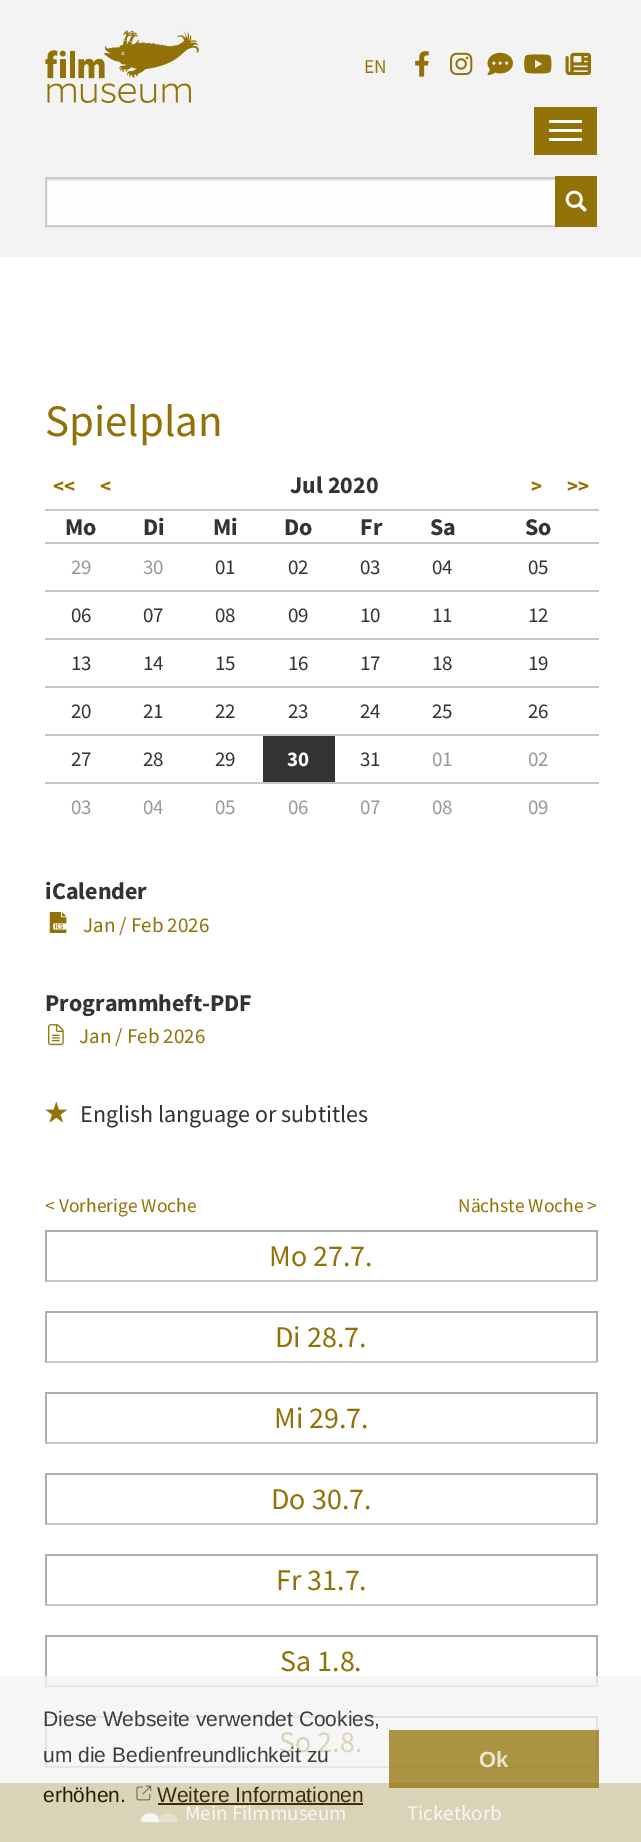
%!PS-Adobe-3.0
%%BoundingBox: 0 0 641 1842
%%LanguageLevel: 3
%%Pages: 1
%%EndComments
%%BeginProlog
/setink { dup -16 bitshift 255 div exch dup -8 bitshift 255 and 255 div exch 255 and 255 div setrgbcolor } def
/usefont { [ exch dup neg 0 0 3 -1 roll 0 0 ] selectfont } def
/rrect { 5 dict begin { /r /h /w /y /x } { exch def } forall
  x r add y moveto x w add y 2 copy h add r arct x w add y h add x 1 index r arct
  x y h add x y r arct x y 2 copy exch w add exch r arct closepath end } def
/drawimage { 5 dict begin { /h /w /y /x /name } { exch def } forall
  gsave x y translate w h scale
  w h 8 [w 0 0 h 0 0] name (r) file false 3 colorimage grestore end } def
%%EndProlog
%%BeginSetup
<< /PageSize [641 1842] >> setpagedevice
%%EndSetup
%%Page: 1 1
0 1842 translate 1 -1 scale
4 setmiterlimit
16#FFFFFF setink
0 0 641 1842 rectfill
[
    [0 1676 641 107 16#F6F6F6]
    [389 1730 210 53 16#AB9343]
    [0 0 641 257 16#F3F3F3]
] { aload pop setink rectfill } forall
(img1.raw) 45 30 154 73 drawimage
/SourceSansPro-Regular 19.5 usefont
16#927207 setink
364 73 moveto (EN) show
(img2.raw) 415 51 14 26 drawimage
(img3.raw) 450 52 23 24 drawimage
(img4.raw) 487 52 26 24 drawimage
(img5.raw) 524 54 28 20 drawimage
(img6.raw) 565 52 26 24 drawimage
534 107 63 48 rectfill
16#FFFFFF setink
549 120 33 3 1.5 rrect fill
549 129 33 3 1.5 rrect fill
549 138 33 3 1.5 rrect fill
16#FEFEFE setink
47 181 508 44 rectfill
16#EBEBEB setink
47 179 508 2 rectfill
16#CCCCCC setink
2 setlinewidth
46 178 510 48 rectstroke
16#927207 setink
555 176 42 51 rectfill
(img7.raw) 565 190 22 22 drawimage
/SourceSansPro-Regular 45 usefont
45 436 moveto (Spielplan) show
16#C7C7C7 setink
45 509 554 2 rectfill
/SourceSansPro-Bold 21 usefont
16#927207 setink
53 493 moveto (<<) show
100 493 moveto (<) show
/SourceSansPro-Bold 24 usefont
16#333333 setink
290 493 moveto (Jul 2020) show
/SourceSansPro-Bold 21 usefont
16#927207 setink
531 493 moveto (>) show
567 493 moveto (>>) show
16#C7C7C7 setink
45 542 554 2 rectfill
/SourceSansPro-Bold 24 usefont
16#333333 setink
[
    [(Mo) 65 535]
    [(Di) 143 535]
    [(Mi) 213 535]
    [(Do) 284 535]
    [(Fr) 360 535]
    [(Sa) 430 535]
    [(So) 525 535]
] { aload pop moveto show } forall
16#C7C7C7 setink
45 590 554 2 rectfill
/SourceSansPro-Regular 21 usefont
16#999999 setink
71 574 moveto (29) show
143 574 moveto (30) show
16#333333 setink
[
    [(01) 215 574]
    [(02) 288 574]
    [(03) 360 574]
    [(04) 432 574]
    [(05) 528 574]
] { aload pop moveto show } forall
16#C7C7C7 setink
45 638 554 2 rectfill
16#333333 setink
[
    [(06) 71 622]
    [(07) 143 622]
    [(08) 215 622]
    [(09) 288 622]
    [(10) 360 622]
    [(11) 432 622]
    [(12) 528 622]
] { aload pop moveto show } forall
16#C7C7C7 setink
45 686 554 2 rectfill
16#333333 setink
[
    [(13) 71 670]
    [(14) 143 670]
    [(15) 215 670]
    [(16) 288 670]
    [(17) 360 670]
    [(18) 432 670]
    [(19) 528 670]
] { aload pop moveto show } forall
16#C7C7C7 setink
45 734 554 2 rectfill
16#333333 setink
[
    [(20) 71 718]
    [(21) 143 718]
    [(22) 215 718]
    [(23) 288 718]
    [(24) 360 718]
    [(25) 432 718]
    [(26) 528 718]
] { aload pop moveto show } forall
16#C7C7C7 setink
45 782 554 2 rectfill
16#333333 setink
[
    [(27) 71 766]
    [(28) 143 766]
    [(29) 215 766]
] { aload pop moveto show } forall
263 736 72 46 rectfill
/SourceSansPro-Bold 21 usefont
16#FFFFFF setink
287 766 moveto (30) show
/SourceSansPro-Regular 21 usefont
16#333333 setink
360 766 moveto (31) show
16#999999 setink
[
    [(01) 432 766]
    [(02) 528 766]
    [(03) 71 814]
    [(04) 143 814]
    [(05) 215 814]
    [(06) 288 814]
    [(07) 360 814]
    [(08) 432 814]
    [(09) 528 814]
] { aload pop moveto show } forall
/SourceSansPro-Bold 24 usefont
16#333333 setink
45 899 moveto (iCalender) show
(img8.raw) 49 912 18 21 drawimage
/SourceSansPro-Regular 21 usefont
16#927207 setink
83 932 moveto (Jan / Feb 2026) show
/SourceSansPro-Bold 24 usefont
16#333333 setink
45 1011 moveto (Programmheft-PDF) show
(img9.raw) 48 1024 16 22 drawimage
/SourceSansPro-Regular 21 usefont
16#927207 setink
79 1043 moveto (Jan / Feb 2026) show
(img10.raw) 45 1101 23 22 drawimage
/SourceSansPro-Regular 24 usefont
16#333333 setink
80 1122 moveto (English language or subtitles) show
/SourceSansPro-Regular 19.5 usefont
16#927207 setink
45 1212 moveto (< Vorherige Woche) show
458 1212 moveto (Nächste Woche >) show
[
    [45 1230 552 2 16#AEAEAE]
    [596 1230 2 51 16#AEAEAE]
    [45 1280 552 2 16#C7C7C7]
    [45 1230 2 51 16#AEAEAE]
] { aload pop setink rectfill } forall
/SourceSansPro-Regular 30 usefont
16#927207 setink
269 1266 moveto (Mo 27.7.) show
[
    [45 1311 552 2 16#AEAEAE]
    [596 1311 2 51 16#AEAEAE]
    [45 1361 552 2 16#C7C7C7]
    [45 1311 2 51 16#AEAEAE]
] { aload pop setink rectfill } forall
16#927207 setink
275 1347 moveto (Di 28.7.) show
[
    [45 1392 552 2 16#AEAEAE]
    [596 1392 2 51 16#AEAEAE]
    [45 1442 552 2 16#C7C7C7]
    [45 1392 2 51 16#AEAEAE]
] { aload pop setink rectfill } forall
16#927207 setink
274 1428 moveto (Mi 29.7.) show
[
    [45 1473 552 2 16#AEAEAE]
    [596 1473 2 51 16#AEAEAE]
    [45 1523 552 2 16#C7C7C7]
    [45 1473 2 51 16#AEAEAE]
] { aload pop setink rectfill } forall
16#927207 setink
271 1509 moveto (Do 30.7.) show
[
    [45 1554 552 2 16#AEAEAE]
    [596 1554 2 51 16#AEAEAE]
    [45 1604 552 2 16#C7C7C7]
    [45 1554 2 51 16#AEAEAE]
] { aload pop setink rectfill } forall
16#927207 setink
276 1590 moveto (Fr 31.7.) show
[
    [45 1635 552 2 16#AEAEAE]
    [596 1635 2 41 16#AEAEAE]
    [596 1676 2 10 16#E2E2E2]
    [45 1685 552 2 16#E8E8E8]
    [45 1635 2 41 16#AEAEAE]
    [45 1676 2 10 16#E2E2E2]
] { aload pop setink rectfill } forall
16#927207 setink
280 1671 moveto (Sa 1.8.) show
[
    [45 1716 552 2 16#E2E2E2]
    [596 1716 2 14 16#E2E2E2]
    [596 1730 2 37 16#A68E3E]
    [45 1766 344 2 16#E8E8E8]
    [389 1766 208 2 16#A8903F]
    [45 1716 2 51 16#E2E2E2]
] { aload pop setink rectfill } forall
16#DBD3B8 setink
279 1752 moveto (So 2.8.) show
/LiberationSans-Regular 21 usefont
16#3D3D3D setink
43 1726 moveto (Diese Webseite verwendet Cookies,) show
43 1762 moveto (um die Bedienfreundlichkeit zu) show
16#DBD3B8 setink
0 1783 641 59 rectfill
16#251D02 setink
43 1802 moveto (erhöhen.) show
(img11.raw) 136 1785 16 16 drawimage
16#3A2E03 setink
157 1802 moveto (Weitere Informationen) show
158 1803 205 2 rectfill
/LiberationSans-Bold 22 usefont
16#EAE4D0 setink
479 1767 moveto (Ok) show
16#A48A33 setink
389 1783 210 5 rectfill
(img12.raw) 141 1813 19 10 drawimage
(img13.raw) 141 1813 37 10 drawimage
/SourceSansPro-Regular 21 usefont
16#F6F6F6 setink
185 1820 moveto (Mein Filmmuseum) show
407 1820 moveto (Ticketkorb) show
showpage
%%EOF
